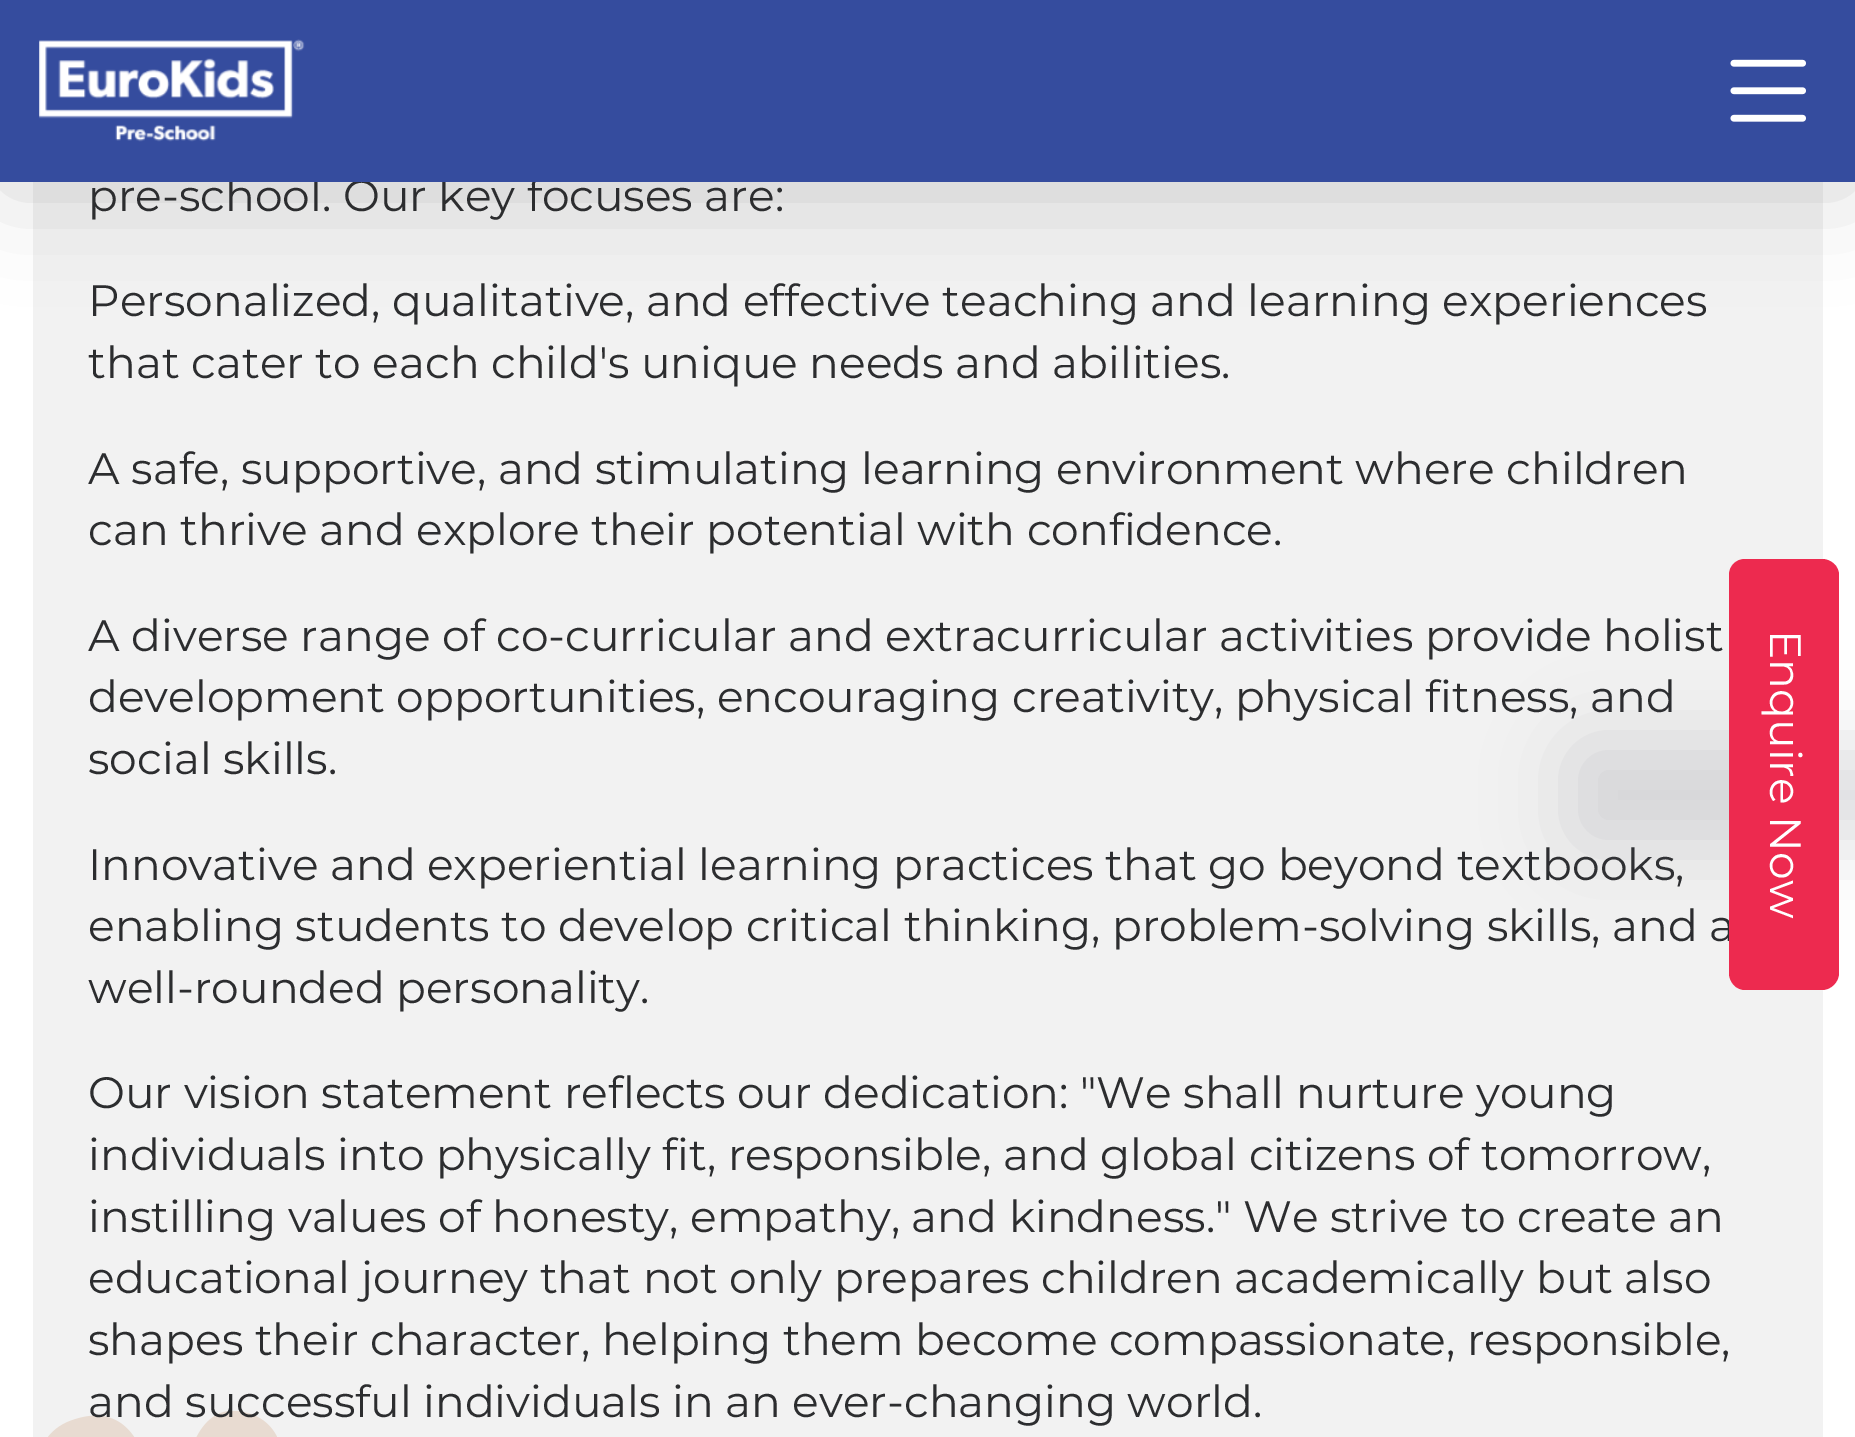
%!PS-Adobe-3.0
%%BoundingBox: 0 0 1855 1437
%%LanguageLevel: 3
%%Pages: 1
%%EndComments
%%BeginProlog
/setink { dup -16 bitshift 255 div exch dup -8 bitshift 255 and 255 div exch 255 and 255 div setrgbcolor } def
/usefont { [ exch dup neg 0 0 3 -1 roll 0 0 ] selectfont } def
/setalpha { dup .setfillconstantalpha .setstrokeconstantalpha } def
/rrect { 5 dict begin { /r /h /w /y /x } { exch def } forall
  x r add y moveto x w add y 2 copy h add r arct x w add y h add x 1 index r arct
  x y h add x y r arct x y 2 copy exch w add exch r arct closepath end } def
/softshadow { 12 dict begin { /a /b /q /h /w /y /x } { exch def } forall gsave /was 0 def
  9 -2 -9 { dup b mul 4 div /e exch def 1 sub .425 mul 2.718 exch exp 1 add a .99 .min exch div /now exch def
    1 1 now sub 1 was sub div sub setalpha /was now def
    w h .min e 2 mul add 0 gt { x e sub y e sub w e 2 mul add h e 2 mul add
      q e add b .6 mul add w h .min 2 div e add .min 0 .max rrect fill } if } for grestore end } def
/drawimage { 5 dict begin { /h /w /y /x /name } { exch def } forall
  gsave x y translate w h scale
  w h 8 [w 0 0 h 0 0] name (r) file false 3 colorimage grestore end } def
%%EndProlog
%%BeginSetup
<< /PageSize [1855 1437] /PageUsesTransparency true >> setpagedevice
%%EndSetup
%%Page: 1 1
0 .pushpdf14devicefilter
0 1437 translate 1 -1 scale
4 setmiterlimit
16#FFFFFF setink
0 0 1855 1437 rectfill
16#F2F2F2 setink
33 182 1790 1255 rectfill
16#000000 setink
0 8 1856 182 0 52 0.16 softshadow
/Montserrat-Regular 44 usefont
16#2C2D2F setink
88 211 moveto (pre-school. Our key focuses are:) show
16#354C9E setink
0 0 1855 182 rectfill
(img1.raw) 39 39 266 103 drawimage
(img2.raw) 1730 59 76 63 drawimage
16#2C2D2F setink
[
    [(Personalized, qualitative, and effective teaching and learning experiences) 88 316]
    [(that cater to each child's unique needs and abilities.) 88 378]
    [(A safe, supportive, and stimulating learning environment where children) 88 484]
    [(can thrive and explore their potential with confidence.) 88 545]
    [(A diverse range of co-curricular and extracurricular activities provide holist) 88 651]
    [(development opportunities, encouraging creativity, physical fitness, and) 88 712]
    [(social skills.) 88 774]
    [(Innovative and experiential learning practices that go beyond textbooks,) 88 880]
    [(enabling students to develop critical thinking, problem-solving skills, and a) 88 941]
    [(well-rounded personality.) 88 1003]
    [(Our vision statement reflects our dedication: "We shall nurture young) 88 1108]
    [(individuals into physically fit, responsible, and global citizens of tomorrow,) 88 1170]
    [(instilling values of honesty, empathy, and kindness." We strive to create an) 88 1232]
    [(educational journey that not only prepares children academically but also) 88 1293]
    [(shapes their character, helping them become compassionate, responsible,) 88 1355]
] { aload pop moveto show } forall
(img3.raw) 48 1411 229 26 drawimage
88 1417 moveto (and successful individuals in an ever-changing world.) show
16#64646F setink
1568 740 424 110 17 40 0.2 softshadow
16#ED2A4F setink
1839 575 moveto 1839 973 lineto 1839 982 1831 990 1822 990 curveto 1745 990 lineto 1736 990 1729 982 1729 973 curveto 1729 575 lineto 1729 566 1736 559 1745 559 curveto 1822 559 lineto 1831 559 1839 566 1839 575 curveto closepath fill
16#FFFFFF setink
gsave 1770 630 translate 90 rotate 0 0 moveto (Enquire Now) show grestore
.poppdf14devicefilter showpage
%%EOF
